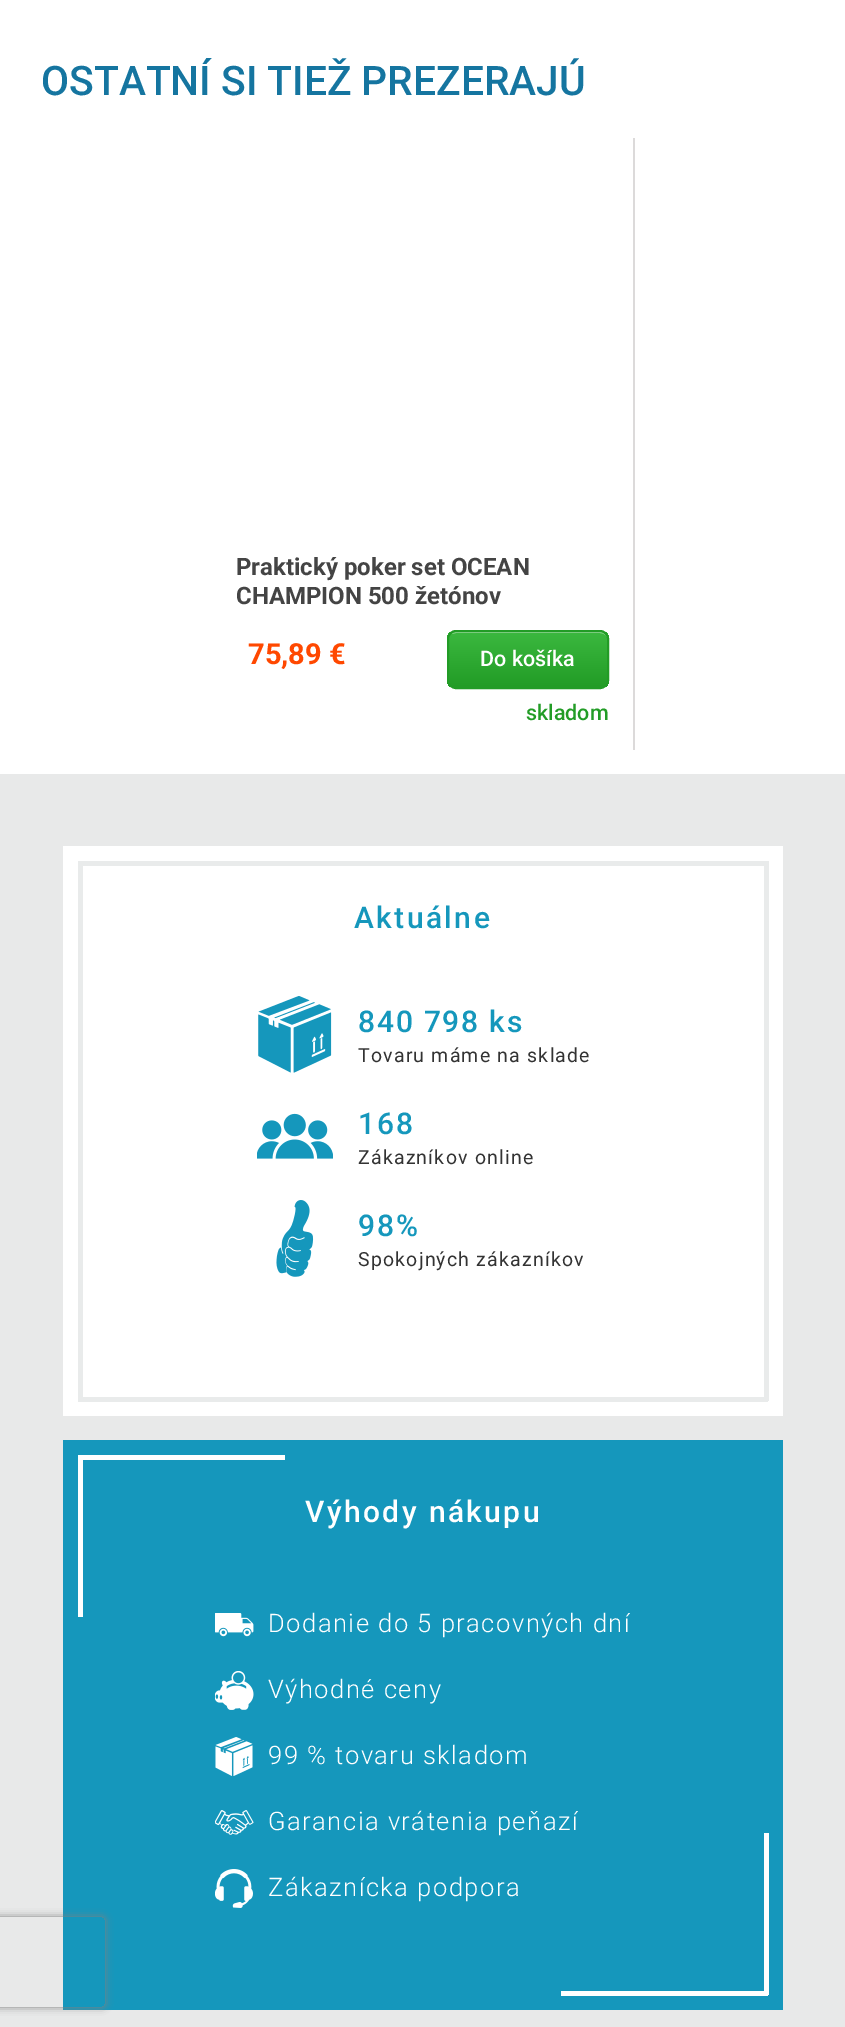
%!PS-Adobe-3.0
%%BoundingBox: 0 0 845 2027
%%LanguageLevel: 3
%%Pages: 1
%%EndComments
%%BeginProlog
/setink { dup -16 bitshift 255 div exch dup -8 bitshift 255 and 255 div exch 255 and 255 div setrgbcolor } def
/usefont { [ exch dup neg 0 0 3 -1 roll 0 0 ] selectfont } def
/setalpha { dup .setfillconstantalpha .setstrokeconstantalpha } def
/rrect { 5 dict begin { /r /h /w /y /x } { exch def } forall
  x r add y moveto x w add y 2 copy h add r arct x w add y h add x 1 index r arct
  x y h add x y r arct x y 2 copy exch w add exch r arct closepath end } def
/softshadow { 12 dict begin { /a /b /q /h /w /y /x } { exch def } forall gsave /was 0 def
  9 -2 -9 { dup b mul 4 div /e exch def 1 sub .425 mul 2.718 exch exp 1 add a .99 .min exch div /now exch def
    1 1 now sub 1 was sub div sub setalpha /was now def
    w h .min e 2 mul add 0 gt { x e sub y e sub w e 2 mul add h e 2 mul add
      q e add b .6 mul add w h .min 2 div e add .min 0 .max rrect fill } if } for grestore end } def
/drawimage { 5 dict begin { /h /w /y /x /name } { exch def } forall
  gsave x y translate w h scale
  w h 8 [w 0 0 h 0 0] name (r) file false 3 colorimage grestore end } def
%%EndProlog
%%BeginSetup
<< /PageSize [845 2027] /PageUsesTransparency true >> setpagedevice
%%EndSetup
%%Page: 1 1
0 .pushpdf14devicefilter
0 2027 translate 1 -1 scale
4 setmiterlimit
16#E8E9E9 setink
0 0 845 2027 rectfill
16#FFFFFF setink
0 0 845 774 rectfill
/Roboto-Medium 40.75 usefont
16#1575A0 setink
41 95 moveto (OSTATNÍ SI TIEŽ PREZERAJÚ) show
16#DCDADA setink
633 138 2 612 rectfill
/Roboto-Bold 24 usefont
16#444444 setink
236 575 moveto (Praktický poker set OCEAN) show
236 604 moveto (CHAMPION 500 žetónov) show
/Roboto-Bold 29 usefont
16#FF4800 setink
248 664 moveto (75,89 €) show
gsave
447 630 162 59 9 rrect clip newpath
gsave 447 632 moveto 609 632 lineto 609 687 lineto 447 687 lineto closepath clip newpath
<< /ShadingType 2 /ColorSpace /DeviceRGB /Coords [528 632 528 687] /Extend [true true] /Function << /FunctionType 2 /Domain [0 1] /C0 [0.231 0.722 0.247] /C1 [0.133 0.612 0.149] /N 1 >> >> shfill grestore
grestore
16#9DDB9F setink
456 633 moveto 600 633 lineto 604 633 608 636 608 640 curveto 608 636 604 632 600 632 curveto 457 632 lineto 455 632 453 633 451 634 curveto 453 634 454 633 456 633 curveto closepath fill
16#229C26 setink
2 setlinewidth
448 631 160 57 8 rrect stroke
/Roboto-Medium 21.5 usefont
16#FFFFFF setink
480 666 moveto (Do košíka) show
16#229C26 setink
526 720 moveto (skladom) show
[
    [63 846 720 570 16#FFFFFF]
    [78 861 690 5 16#E9EBEB]
    [78 861 5 540 16#E9EBEB]
    [764 861 5 540 16#E9EBEB]
    [78 1397 690 5 16#E9EBEB]
] { aload pop setink rectfill } forall
/Roboto-Medium 30 usefont
16#1597BC setink
354 928 moveto 2.4 0 (Aktuálne) ashow
(img1.raw) 258 996 74 77 drawimage
358 1032 moveto 1.75 0 (840 798 ks) ashow
/Roboto-Regular 19.5 usefont
16#333333 setink
358 1062 moveto 1.2 0 (Tovaru máme na sklade) ashow
(img2.raw) 257 1113 76 46 drawimage
/Roboto-Medium 30 usefont
16#1597BC setink
358 1134 moveto 1.75 0 (168) ashow
/Roboto-Regular 19.5 usefont
16#333333 setink
358 1164 moveto 1.2 0 (Zákazníkov online) ashow
(img3.raw) 276 1200 38 77 drawimage
/Roboto-Medium 30 usefont
16#1597BC setink
358 1236 moveto 1.75 0 (98%) ashow
/Roboto-Regular 19.5 usefont
16#333333 setink
358 1266 moveto 1.2 0 (Spokojných zákazníkov) ashow
[
    [63 1440 720 570 16#1597BC]
    [78 1455 207 5 16#FFFFFF]
    [78 1455 5 162 16#FFFFFF]
] { aload pop setink rectfill } forall
/Roboto-Medium 30 usefont
305 1522 moveto 2.4 0 (Výhody nákupu) ashow
(img4.raw) 215 1613 39 24 drawimage
/Roboto-Light 25.5 usefont
268 1632 moveto 1.5 0 (Dodanie do 5 pracovných dní) ashow
(img5.raw) 215 1671 39 39 drawimage
268 1698 moveto 1.5 0 (Výhodné ceny) ashow
(img6.raw) 215 1737 38 39 drawimage
268 1764 moveto 1.5 0 (99 % tovaru skladom) ashow
(img7.raw) 215 1810 39 25 drawimage
268 1830 moveto 1.5 0 (Garancia vrátenia peňazí) ashow
(img8.raw) 215 1869 38 39 drawimage
268 1896 moveto 1.5 0 (Zákaznícka podpora) ashow
764 1833 5 162 rectfill
561 1991 207 5 rectfill
gsave
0 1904 moveto 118 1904 lineto 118 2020 lineto 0 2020 lineto closepath -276 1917 moveto 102 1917 lineto 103.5 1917 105 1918.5 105 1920 curveto 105 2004 lineto 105 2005.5 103.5 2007 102 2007 curveto -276 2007 lineto -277.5 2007 -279 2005.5 -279 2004 curveto -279 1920 lineto -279 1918.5 -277.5 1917 -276 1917 curveto closepath eoclip newpath
16#808080 setink
-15 1917 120 90 3 4 1 softshadow
grestore
.poppdf14devicefilter showpage
%%EOF
